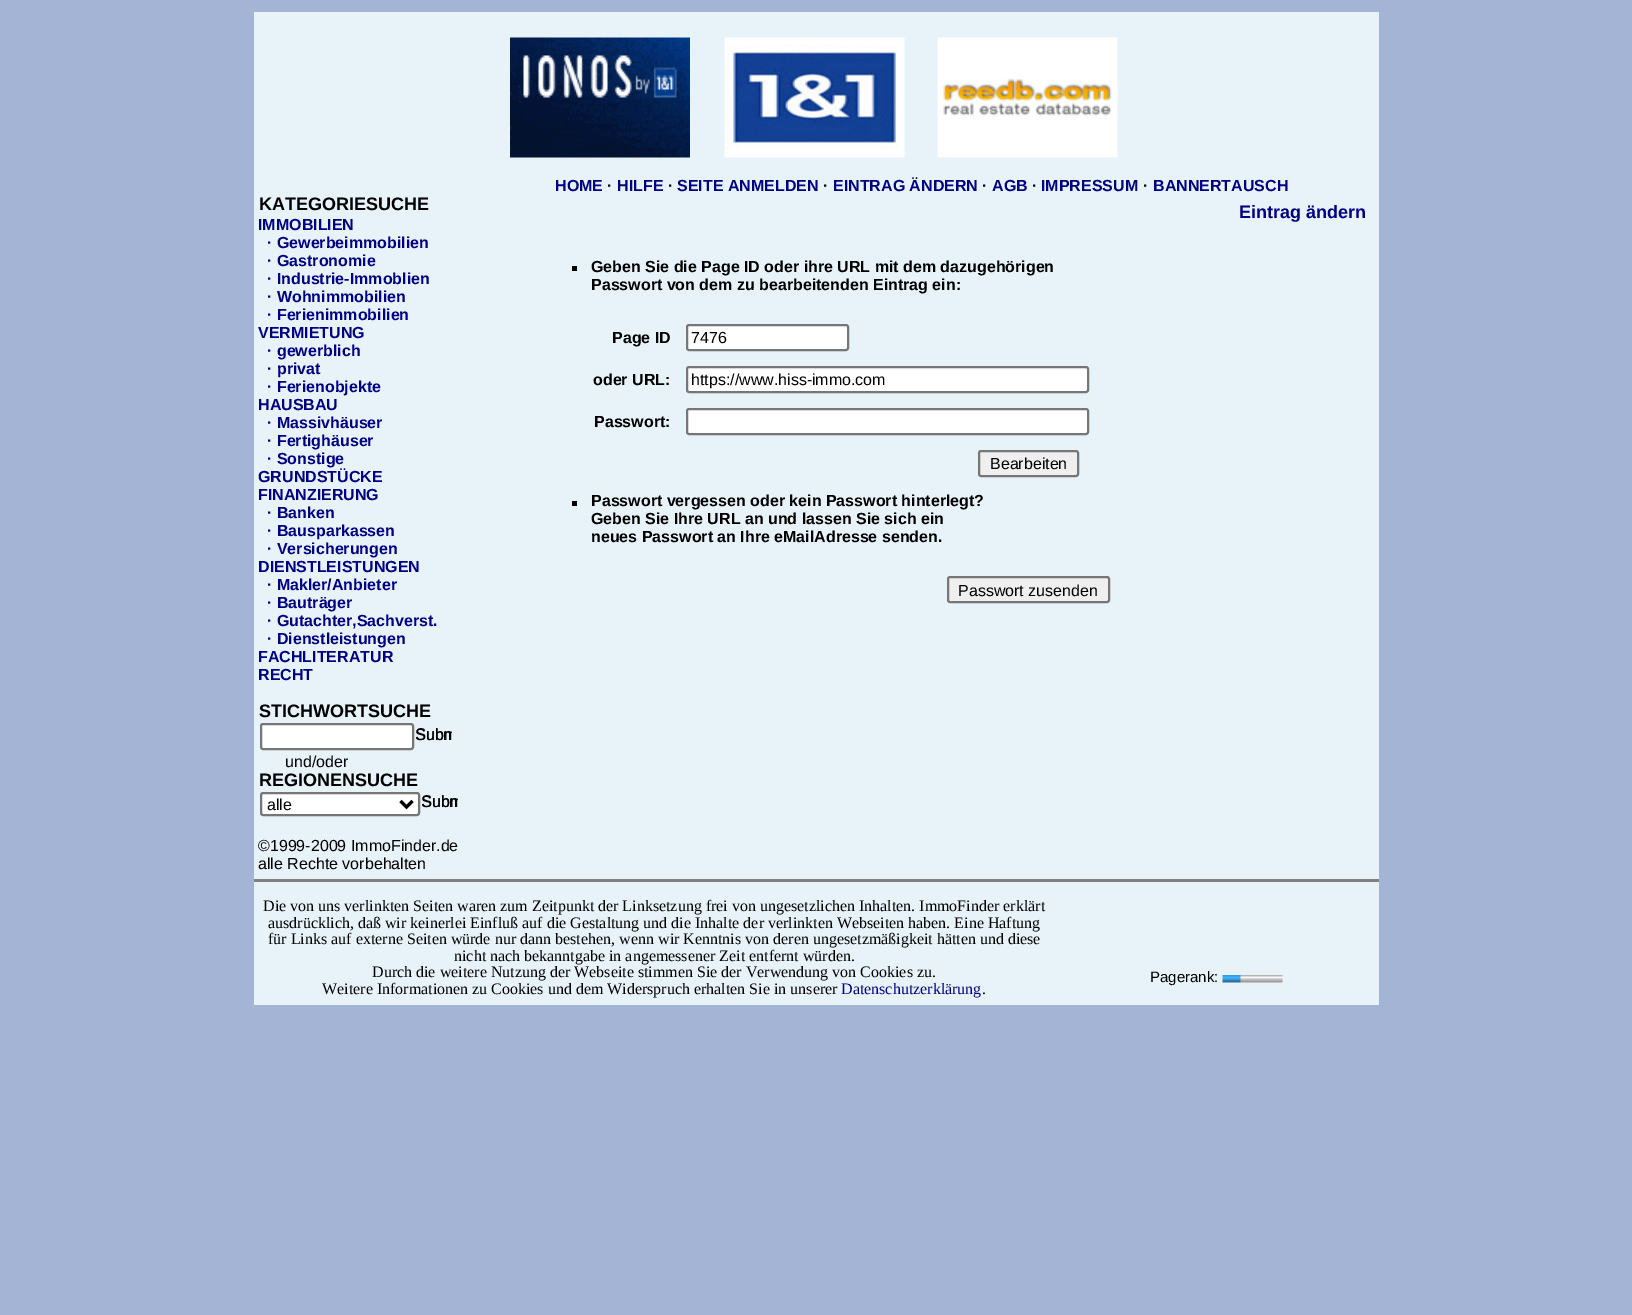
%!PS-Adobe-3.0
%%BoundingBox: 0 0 1632 1315
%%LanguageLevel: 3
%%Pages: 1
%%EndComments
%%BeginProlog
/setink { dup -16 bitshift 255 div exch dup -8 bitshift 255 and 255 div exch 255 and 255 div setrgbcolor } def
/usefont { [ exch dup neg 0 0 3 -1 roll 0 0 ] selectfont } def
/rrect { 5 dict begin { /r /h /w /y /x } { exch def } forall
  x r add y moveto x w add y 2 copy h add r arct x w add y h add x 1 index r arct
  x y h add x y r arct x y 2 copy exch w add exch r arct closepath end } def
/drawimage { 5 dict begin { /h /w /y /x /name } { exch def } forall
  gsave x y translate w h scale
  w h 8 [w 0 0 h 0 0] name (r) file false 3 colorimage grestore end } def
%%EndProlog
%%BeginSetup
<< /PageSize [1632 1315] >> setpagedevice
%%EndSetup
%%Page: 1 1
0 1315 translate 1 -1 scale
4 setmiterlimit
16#A4B4D5 setink
0 0 1632 1315 rectfill
16#E8F2F9 setink
254 12 1125 993 rectfill
(img1.raw) 510 37 180 121 drawimage
(img2.raw) 724 37 181 121 drawimage
(img3.raw) 937 37 181 121 drawimage
/LiberationSans-Bold 16 usefont
16#000080 setink
555 191 moveto (HOME) show
16#000000 setink
607 191 moveto (·) show
16#000080 setink
617 191 moveto (HILFE) show
16#000000 setink
668 191 moveto (·) show
16#000080 setink
677 191 moveto (SEITE ANMELDEN) show
16#000000 setink
823 191 moveto (·) show
16#000080 setink
833 191 moveto (EINTRAG ÄNDERN) show
16#000000 setink
982 191 moveto (·) show
16#000080 setink
992 191 moveto (AGB) show
16#000000 setink
1032 191 moveto (·) show
16#000080 setink
1041 191 moveto (IMPRESSUM) show
16#000000 setink
1143 191 moveto (·) show
16#000080 setink
1153 191 moveto (BANNERTAUSCH) show
/LiberationSans-Bold 18 usefont
16#000000 setink
259 210 moveto (KATEGORIESUCHE) show
/LiberationSans-Bold 16 usefont
16#000080 setink
[
    [(IMMOBILIEN) 258 230]
    [(· Gewerbeimmobilien) 267 248]
    [(· Gastronomie) 267 266]
    [(· Industrie-Immoblien) 267 284]
    [(· Wohnimmobilien) 267 302]
    [(· Ferienimmobilien) 267 320]
    [(VERMIETUNG) 258 338]
    [(· gewerblich) 267 356]
    [(· privat) 267 374]
    [(· Ferienobjekte) 267 392]
    [(HAUSBAU) 258 410]
    [(· Massivhäuser) 267 428]
    [(· Fertighäuser) 267 446]
    [(· Sonstige) 267 464]
    [(GRUNDSTÜCKE) 258 482]
    [(FINANZIERUNG) 258 500]
    [(· Banken) 267 518]
    [(· Bausparkassen) 267 536]
    [(· Versicherungen) 267 554]
    [(DIENSTLEISTUNGEN) 258 572]
    [(· Makler/Anbieter) 267 590]
    [(· Bauträger) 267 608]
    [(· Gutachter,Sachverst.) 267 626]
    [(· Dienstleistungen) 267 644]
    [(FACHLITERATUR) 258 662]
    [(RECHT) 258 680]
] { aload pop moveto show } forall
/LiberationSans-Bold 18 usefont
16#000000 setink
259 717 moveto (STICHWORTSUCHE) show
16#FFFFFF setink
261 724 152 25 2 rrect gsave fill grestore
16#767676 setink
2 setlinewidth
stroke
(img4.raw) 416 728 36 12 drawimage
gsave
416 725 36 24 rectclip
/LiberationSans-Regular 16 usefont
16#000000 setink
415 740 moveto (Subm) show
grestore
/LiberationSans-Regular 16 usefont
16#000000 setink
285 767 moveto (und/oder) show
/LiberationSans-Bold 18 usefont
259 786 moveto (REGIONENSUCHE) show
16#FFFFFF setink
261 793 158 22 2 rrect gsave fill grestore
16#767676 setink
stroke
16#000000 setink
3 setlinewidth
400.5 801 moveto 406.5 807 lineto 412.5 801 lineto stroke
/LiberationSans-Regular 16 usefont
267 810 moveto (alle) show
(img4.raw) 422 795 36 12 drawimage
gsave
422 792 36 24 rectclip
421 807 moveto (Subm) show
grestore
258 851 moveto (©1999-2009 ImmoFinder.de) show
258 869 moveto (alle Rechte vorbehalten) show
/LiberationSans-Bold 18 usefont
16#000080 setink
1239 218 moveto (Eintrag ändern) show
16#000000 setink
572 266 5 5 rectfill
/LiberationSans-Bold 16 usefont
[
    [(Geben Sie die Page ID oder ihre URL mit dem dazugehörigen) 591 272]
    [(Passwort von dem zu bearbeitenden Eintrag ein:) 591 290]
    [(Page ID) 612 343]
] { aload pop moveto show } forall
16#FFFFFF setink
687 325 161 25 2 rrect gsave fill grestore
16#767676 setink
2 setlinewidth
stroke
/LiberationSans-Regular 16 usefont
16#000000 setink
691 343 moveto (7476) show
/LiberationSans-Bold 16 usefont
593 385 moveto (oder URL:) show
16#FFFFFF setink
687 367 401 25 2 rrect gsave fill grestore
16#767676 setink
stroke
/LiberationSans-Regular 16 usefont
16#000000 setink
691 385 moveto (https://www.hiss-immo.com) show
/LiberationSans-Bold 16 usefont
594 427 moveto (Passwort:) show
16#FFFFFF setink
687 409 401 25 2 rrect gsave fill grestore
16#767676 setink
stroke
16#EFEFEF setink
979 451 99 25 2 rrect gsave fill grestore
16#767676 setink
stroke
/LiberationSans-Regular 16 usefont
16#000000 setink
990 469 moveto (Bearbeiten) show
572 501 5 5 rectfill
/LiberationSans-Bold 16 usefont
[
    [(Passwort vergessen oder kein Passwort hinterlegt?) 591 506]
    [(Geben Sie Ihre URL an und lassen Sie sich ein) 591 524]
    [(neues Passwort an Ihre eMailAdresse senden.) 591 542]
] { aload pop moveto show } forall
16#EFEFEF setink
948 577 161 25 2 rrect gsave fill grestore
16#767676 setink
stroke
/LiberationSans-Regular 16 usefont
16#000000 setink
958 596 moveto (Passwort zusenden) show
16#808080 setink
254 879 1125 3 rectfill
/LiberationSerif-Regular 16 usefont
16#000000 setink
[
    [(Die von uns verlinkten Seiten waren zum Zeitpunkt der Linksetzung frei von ungesetzlichen Inhalten. ImmoFinder erklärt) 263 911]
    [(ausdrücklich, daß wir keinerlei Einfluß auf die Gestaltung und die Inhalte der verlinkten Webseiten haben. Eine Haftung) 268 928]
    [(für Links auf externe Seiten würde nur dann bestehen, wenn) 268 944]
    [(wir Kenntnis von deren ungesetzmäßigkeit hätten und diese) 658 944]
    [(nicht nach bekanntgabe in angemessener Zeit entfernt würden.) 454 961]
    [(Durch die weitere Nutzung der Webseite stimmen Sie der Verwendung von Cookies zu.) 372 977]
    [(Weitere Informationen zu Cookies und dem Widerspruch erhalten Sie in unserer) 322 994]
] { aload pop moveto show } forall
16#000080 setink
841 994 moveto (Datenschutzerklärung) show
16#000000 setink
982 994 moveto (.) show
/LiberationSans-Regular 15 usefont
1150 982 moveto (Pagerank:) show
(img5.raw) 1222 975 61 8 drawimage
showpage
%%EOF
